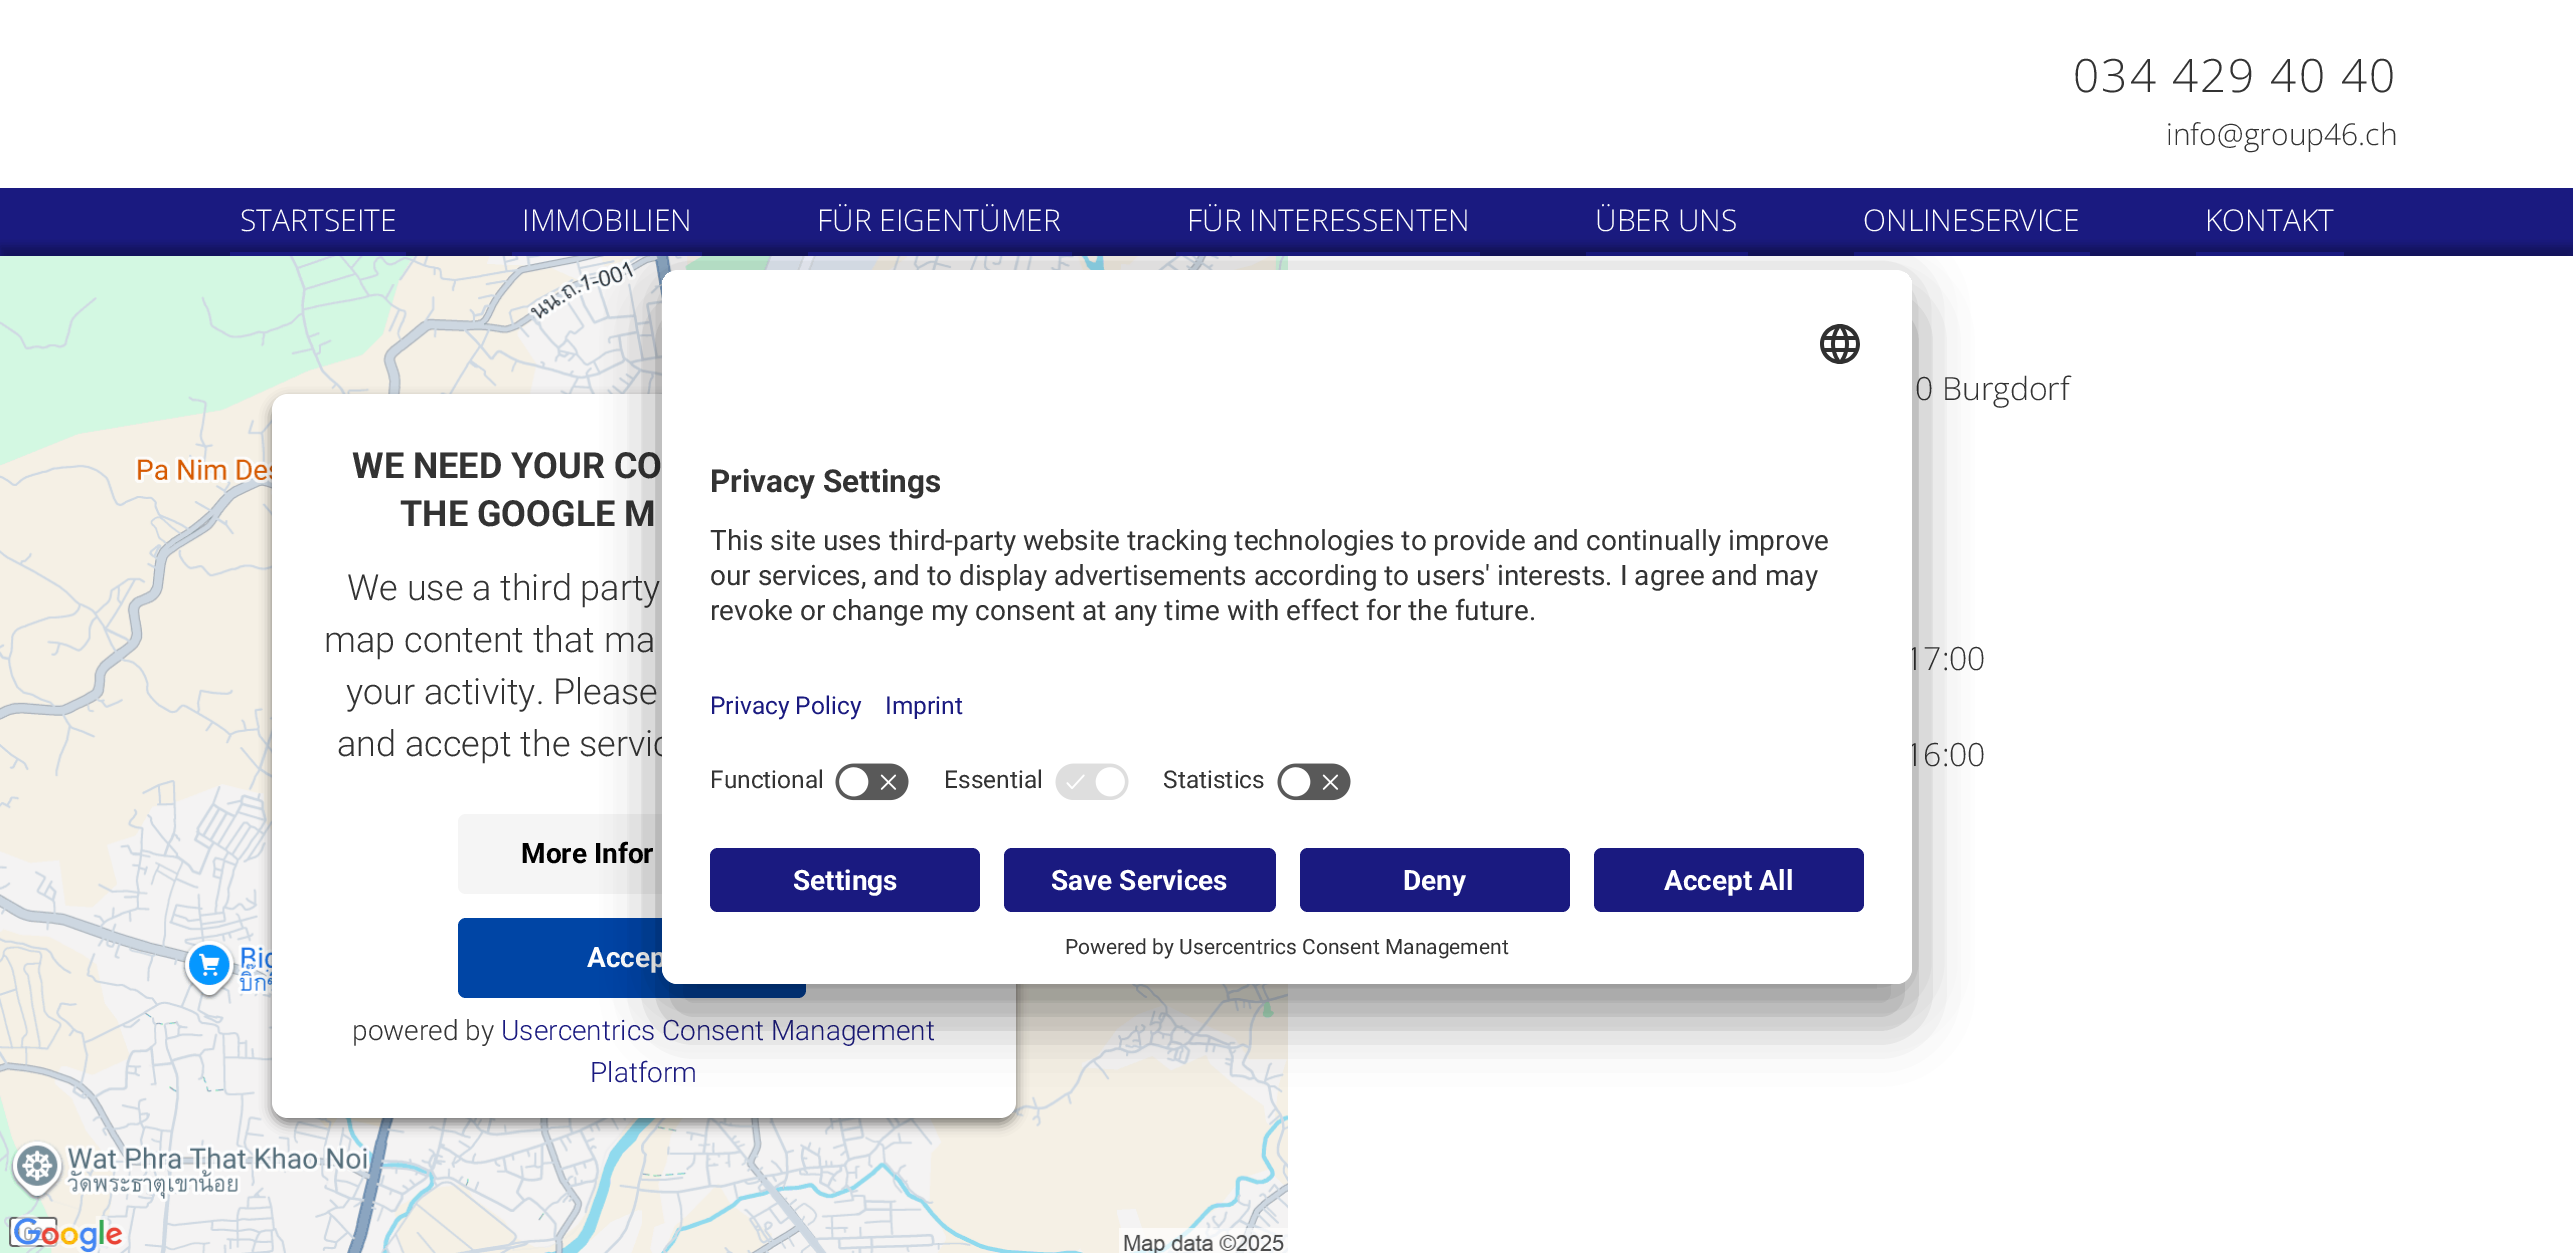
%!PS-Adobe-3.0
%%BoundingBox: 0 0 2573 1253
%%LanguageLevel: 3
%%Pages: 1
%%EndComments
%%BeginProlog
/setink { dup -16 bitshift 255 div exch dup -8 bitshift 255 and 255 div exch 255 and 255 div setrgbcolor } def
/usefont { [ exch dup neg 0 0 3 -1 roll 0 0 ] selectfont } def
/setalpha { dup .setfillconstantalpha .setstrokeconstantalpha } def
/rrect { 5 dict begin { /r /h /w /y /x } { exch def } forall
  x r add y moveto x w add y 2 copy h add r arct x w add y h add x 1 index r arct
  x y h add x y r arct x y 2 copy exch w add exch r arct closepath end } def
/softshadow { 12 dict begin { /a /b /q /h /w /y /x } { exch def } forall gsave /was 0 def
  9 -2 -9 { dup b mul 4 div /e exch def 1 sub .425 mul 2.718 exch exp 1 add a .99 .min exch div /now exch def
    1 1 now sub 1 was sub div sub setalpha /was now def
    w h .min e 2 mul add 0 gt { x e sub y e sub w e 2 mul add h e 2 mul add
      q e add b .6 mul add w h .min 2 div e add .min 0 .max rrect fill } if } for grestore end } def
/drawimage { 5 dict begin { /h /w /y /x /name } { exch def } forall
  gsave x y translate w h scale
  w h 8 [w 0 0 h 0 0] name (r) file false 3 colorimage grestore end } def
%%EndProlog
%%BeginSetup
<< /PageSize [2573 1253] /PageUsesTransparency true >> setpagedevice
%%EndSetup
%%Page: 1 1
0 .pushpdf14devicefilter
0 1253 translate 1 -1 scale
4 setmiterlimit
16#FFFFFF setink
0 0 2573 1253 rectfill
/OpenSans-Light 46 usefont
16#333333 setink
2073 92 moveto 2 0 (034 429 40 40) ashow
/OpenSans-Light 30 usefont
2166 145 moveto (info@group46.ch) show
16#1A1A80 setink
0 188 2573 68 rectfill
gsave
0 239 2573 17 rectclip
16#000000 setink
0 246 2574 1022 0 5 0.3 softshadow
grestore
230 252 176 4 rectfill
16#FFFFFF setink
240 231 moveto (STARTSEITE) show
16#1A1A80 setink
512 252 190 4 rectfill
16#FFFFFF setink
522 231 moveto (IMMOBILIEN) show
16#1A1A80 setink
808 252 264 4 rectfill
16#FFFFFF setink
817 231 moveto (FÜR EIGENTÜMER) show
16#1A1A80 setink
1176 252 304 4 rectfill
16#FFFFFF setink
1187 231 moveto (FÜR INTERESSENTEN) show
16#1A1A80 setink
1586 252 162 4 rectfill
16#FFFFFF setink
1595 231 moveto (ÜBER UNS) show
16#1A1A80 setink
1854 252 236 4 rectfill
16#FFFFFF setink
1863 231 moveto (ONLINESERVICE) show
16#1A1A80 setink
2196 252 148 4 rectfill
16#FFFFFF setink
2205 231 moveto (KONTAKT) show
(img1.raw) 0 256 1288 997 drawimage
16#000000 setink
272 400 744 724 16 6 0.5 softshadow
16#FFFFFF setink
272 394 744 724 16 rrect fill
/Roboto-Bold 36 usefont
16#333333 setink
352 478 moveto (WE NEED YOUR CO) show
400 526 moveto (THE GOOGLE M) show
/Roboto-Light 36 usefont
[
    [(We use a third party) 347 600]
    [(map content that ma) 324 652]
    [(your activity. Please) 346 704]
    [(and accept the servic) 337 756]
] { aload pop moveto show } forall
16#F5F5F5 setink
458 814 348 80 8 rrect fill
/Roboto-Bold 28 usefont
16#000000 setink
521 863 moveto (More Infor) show
16#0045A5 setink
458 918 348 80 8 rrect fill
16#FFFFFF setink
587 967 moveto (Accep) show
/Roboto-Light 28 usefont
16#333333 setink
352 1040 moveto (powered by) show
16#1A1A80 setink
501 1040 moveto (Usercentrics Consent Management) show
590 1082 moveto (Platform) show
/OpenSans-Light 32 usefont
16#333333 setink
[
    [(0 Burgdorf) 1915 400]
    [(17:00) 1905 670]
    [(16:00) 1905 766]
] { aload pop moveto show } forall
16#000000 setink
662 310 1250 714 16 28 0.3 softshadow
662 280 1250 714 16 26 0.22 softshadow
16#FFFFFF setink
662 270 1250 714 16 rrect fill
gsave
662 270 1250 714 16 rrect clip newpath
678 270 moveto 1896 270 lineto 1905 270 1912 277 1912 286 curveto 1912 832 lineto 662 832 lineto 662 286 lineto 662 277 669 270 678 270 curveto closepath clip newpath
662 272 1250 560 rectfill
662 272 1250 480 rectfill
grestore
(img2.raw) 1820 324 40 40 drawimage
/Roboto-Bold 31.5 usefont
16#333333 setink
710 492 moveto (Privacy Settings) show
/Roboto-Regular 28 usefont
[
    [(This site uses third-party website tracking technologies to provide and continually improve) 710 550]
    [(our services, and to display advertisements according to users' interests. I agree and may) 710 585]
    [(revoke or change my consent at any time with effect for the future.) 710 620]
] { aload pop moveto show } forall
/Roboto-Regular 24.5 usefont
16#1A1A80 setink
710 714 moveto (Privacy Policy) show
885 714 moveto (Imprint) show
16#333333 setink
710 788 moveto (Functional) show
(img3.raw) 835 763 74 38 drawimage
944 788 moveto (Essential) show
(img4.raw) 1055 763 74 37 drawimage
1163 788 moveto (Statistics) show
(img3.raw) 1277 763 74 38 drawimage
16#FFFFFF setink
662 832 moveto 1912 832 lineto 1912 968 lineto 1912 977 1905 984 1896 984 curveto 678 984 lineto 669 984 662 977 662 968 curveto closepath fill
16#1A1A80 setink
710 848 270 64 8 rrect fill
/Roboto-Bold 28 usefont
16#FFFFFF setink
793 890 moveto (Settings) show
16#1A1A80 setink
1004 848 272 64 8 rrect fill
16#FFFFFF setink
1051 890 moveto (Save Services) show
16#1A1A80 setink
1300 848 270 64 8 rrect fill
16#FFFFFF setink
1403 890 moveto (Deny) show
16#1A1A80 setink
1594 848 270 64 8 rrect fill
16#FFFFFF setink
1664 890 moveto (Accept All) show
/Roboto-Regular 21 usefont
16#333333 setink
1065 954 moveto (Powered by Usercentrics Consent Management) show
.poppdf14devicefilter showpage
%%EOF
